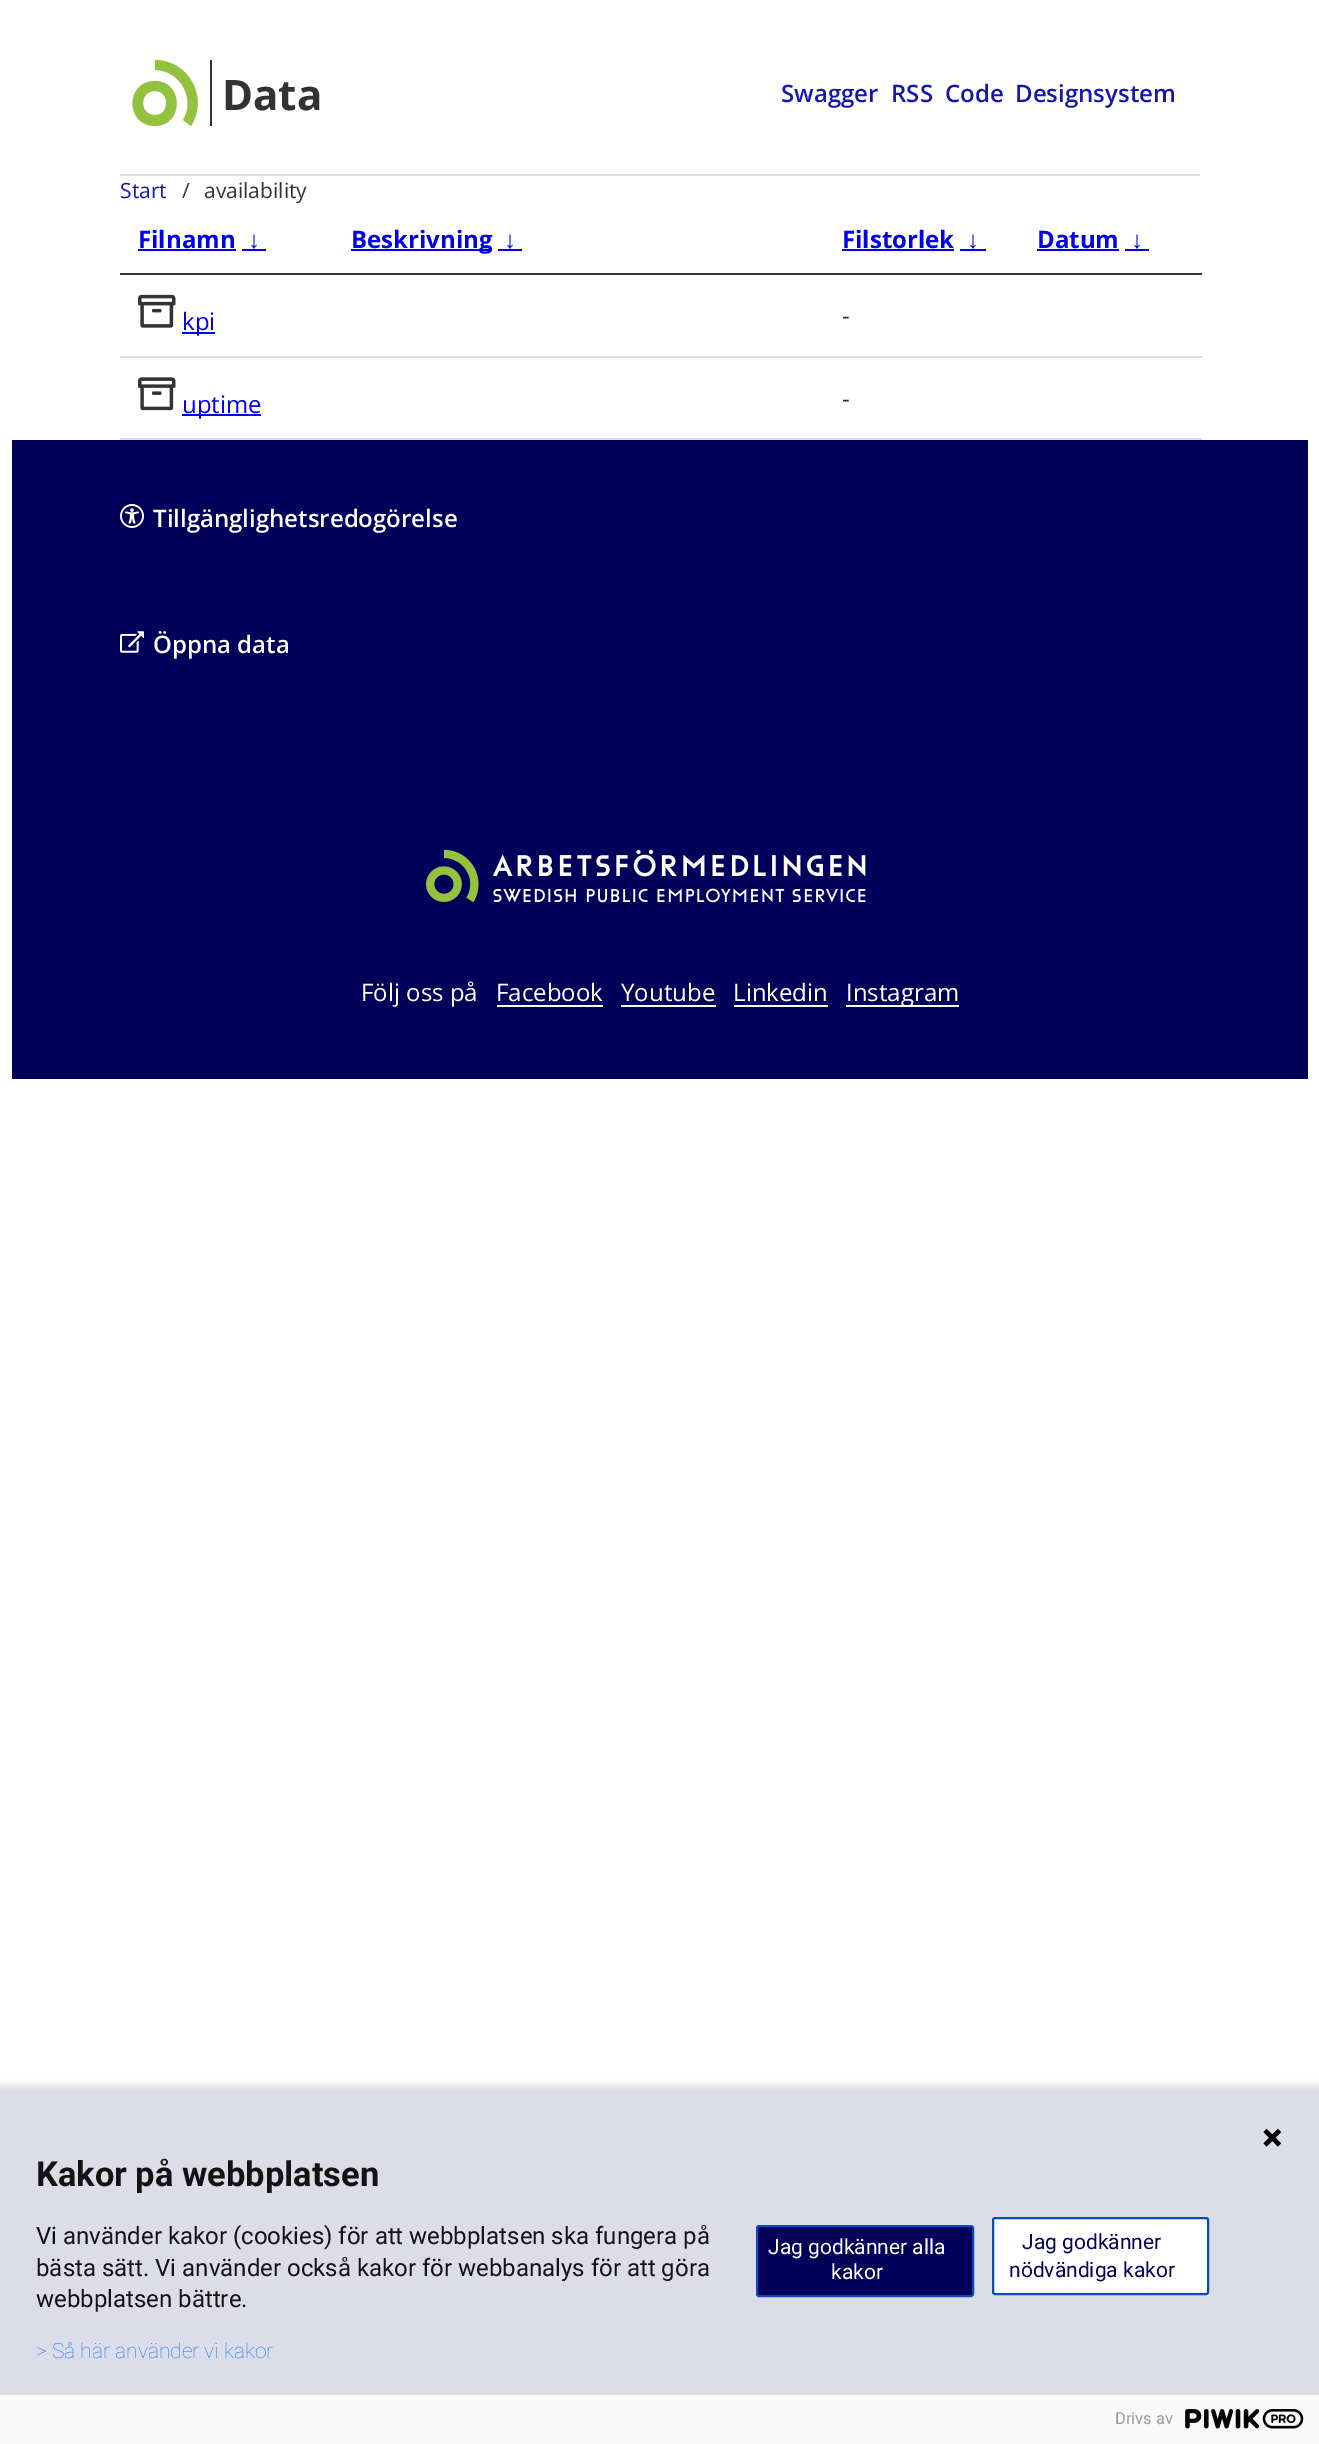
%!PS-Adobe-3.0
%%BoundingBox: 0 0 1319 2444
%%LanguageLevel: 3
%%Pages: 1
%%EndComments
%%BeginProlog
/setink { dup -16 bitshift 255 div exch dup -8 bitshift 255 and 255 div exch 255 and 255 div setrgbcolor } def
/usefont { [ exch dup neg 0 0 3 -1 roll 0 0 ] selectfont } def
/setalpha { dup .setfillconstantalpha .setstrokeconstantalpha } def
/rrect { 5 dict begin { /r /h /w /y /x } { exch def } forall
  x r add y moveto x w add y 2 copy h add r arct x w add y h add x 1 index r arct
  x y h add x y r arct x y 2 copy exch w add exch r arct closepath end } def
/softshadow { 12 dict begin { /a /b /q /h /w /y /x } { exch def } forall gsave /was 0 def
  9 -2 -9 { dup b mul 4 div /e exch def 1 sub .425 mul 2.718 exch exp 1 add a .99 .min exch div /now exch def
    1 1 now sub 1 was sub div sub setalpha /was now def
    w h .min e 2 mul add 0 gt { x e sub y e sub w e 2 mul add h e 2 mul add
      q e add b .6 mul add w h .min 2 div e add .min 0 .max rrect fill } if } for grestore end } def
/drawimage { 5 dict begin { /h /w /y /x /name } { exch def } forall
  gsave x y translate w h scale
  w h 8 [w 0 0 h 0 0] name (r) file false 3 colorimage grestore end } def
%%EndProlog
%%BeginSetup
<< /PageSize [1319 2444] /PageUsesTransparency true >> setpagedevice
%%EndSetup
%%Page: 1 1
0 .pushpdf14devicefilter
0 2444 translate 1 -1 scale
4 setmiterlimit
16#FFFFFF setink
0 0 1319 2444 rectfill
16#DDDDDD setink
120 174 1080 2 rectfill
16#95C23E setink
155 60 moveto 189 60 209 98 191 126 curveto 183 120 lineto 196 99 180 70 155 70 curveto closepath 155 81 moveto 184 81 184 126 155 126 curveto 125 126 125 81 155 81 curveto closepath 155 91 moveto 139 91 139 115 155 115 curveto 170 115 170 91 155 91 curveto closepath eofill
16#333333 setink
210 60 2 66 rectfill
/OpenSans-Bold 42 usefont
222 110 moveto (Data) show
/OpenSans-SemiBold 24 usefont
16#1616B2 setink
[
    [(Swagger) 781 102]
    [(RSS) 891 102]
    [(Code) 945 102]
    [(Designsystem) 1015 102]
] { aload pop moveto show } forall
/OpenSans-Regular 21 usefont
120 198 moveto (Start) show
16#333333 setink
182 198 moveto (/) show
204 198 moveto (availability) show
/OpenSans-Bold 24 usefont
16#0000EE setink
138 248 moveto (Filnamn) show
138 249 98 2 rectfill
/LiberationSerif-Bold 24 usefont
248 248 moveto (↓) show
242 249 24 2 rectfill
351 249 141 2 rectfill
/OpenSans-Bold 24 usefont
351 248 moveto (Beskrivning) show
/LiberationSerif-Bold 24 usefont
504 248 moveto (↓) show
498 249 24 2 rectfill
/OpenSans-Bold 24 usefont
842 248 moveto (Filstorlek) show
842 249 112 2 rectfill
/LiberationSerif-Bold 24 usefont
967 248 moveto (↓) show
960 249 26 2 rectfill
16#333333 setink
120 273 1082 2 rectfill
/OpenSans-Bold 24 usefont
16#0000EE setink
1037 248 moveto (Datum) show
1037 249 82 2 rectfill
/LiberationSerif-Bold 24 usefont
1131 248 moveto (↓) show
1125 249 24 2 rectfill
(img1.raw) 138 294 38 34 drawimage
182 332 33 2 rectfill
/OpenSans-Regular 24 usefont
182 330 moveto (kpi) show
16#333333 setink
842 324 moveto (-) show
16#DDDDDD setink
120 356 1082 2 rectfill
(img2.raw) 138 377 38 34 drawimage
16#0000EE setink
182 414 79 2 rectfill
182 413 moveto (uptime) show
16#333333 setink
842 407 moveto (-) show
16#DDDDDD setink
120 438 1082 2 rectfill
16#00005A setink
12 440 1296 639 rectfill
(img3.raw) 120 504 24 24 drawimage
/OpenSans-SemiBold 24 usefont
16#FFFFFF setink
153 527 moveto (Tillgänglighetsredogörelse) show
(img4.raw) 120 631 24 22 drawimage
153 653 moveto (Öppna data) show
(img5.raw) 426 849 440 54 drawimage
/OpenSans-Regular 24 usefont
361 1001 moveto (Följ oss på) show
496 1001 moveto (Facebook) show
497 1005 106 2 rectfill
621 1001 moveto (Youtube) show
621 1005 95 2 rectfill
733 1001 moveto (Linkedin) show
734 1005 94 2 rectfill
846 1005 113 2 rectfill
846 1001 moveto (Instagram) show
16#000000 setink
-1 2085 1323 359 0 4 0.14 softshadow
16#DDDDE9 setink
0 2090 1319 303 rectfill
(img6.raw) 1263 2128 19 19 drawimage
/Roboto-Bold 34.5 usefont
16#131313 setink
36 2186 moveto (Kakor på webbplatsen) show
/Roboto-Regular 24 usefont
[
    [(Vi använder kakor \(cookies\) för att webbplatsen ska fungera på) 36 2244]
    [(bästa sätt. Vi använder också kakor för webbanalys för att göra) 36 2276]
    [(webbplatsen bättre.) 36 2307]
] { aload pop moveto show } forall
/Roboto-Thin 21 usefont
16#107EF1 setink
36 2358 moveto (> Så här använder vi kakor) show
16#00005A setink
757 2226 216 70 2 rrect gsave fill grestore
16#0B4BB3 setink
2 setlinewidth
stroke
/Roboto-Regular 21 usefont
16#FFFFFF setink
768 2254 moveto (Jag godkänner alla) show
831 2279 moveto (kakor) show
993 2218 215 76 2 rrect gsave fill grestore
16#0B4BB3 setink
stroke
16#00005A setink
1022 2249 moveto (Jag godkänner) show
1009 2277 moveto (nödvändiga kakor) show
16#FAFAFA setink
0 2395 1319 49 rectfill
16#DDDDDD setink
0 2393 1319 2 rectfill
/Roboto-Regular 16.5 usefont
16#999999 setink
1115 2424 moveto (Drivs av) show
(img7.raw) 1185 2409 119 20 drawimage
.poppdf14devicefilter showpage
%%EOF
